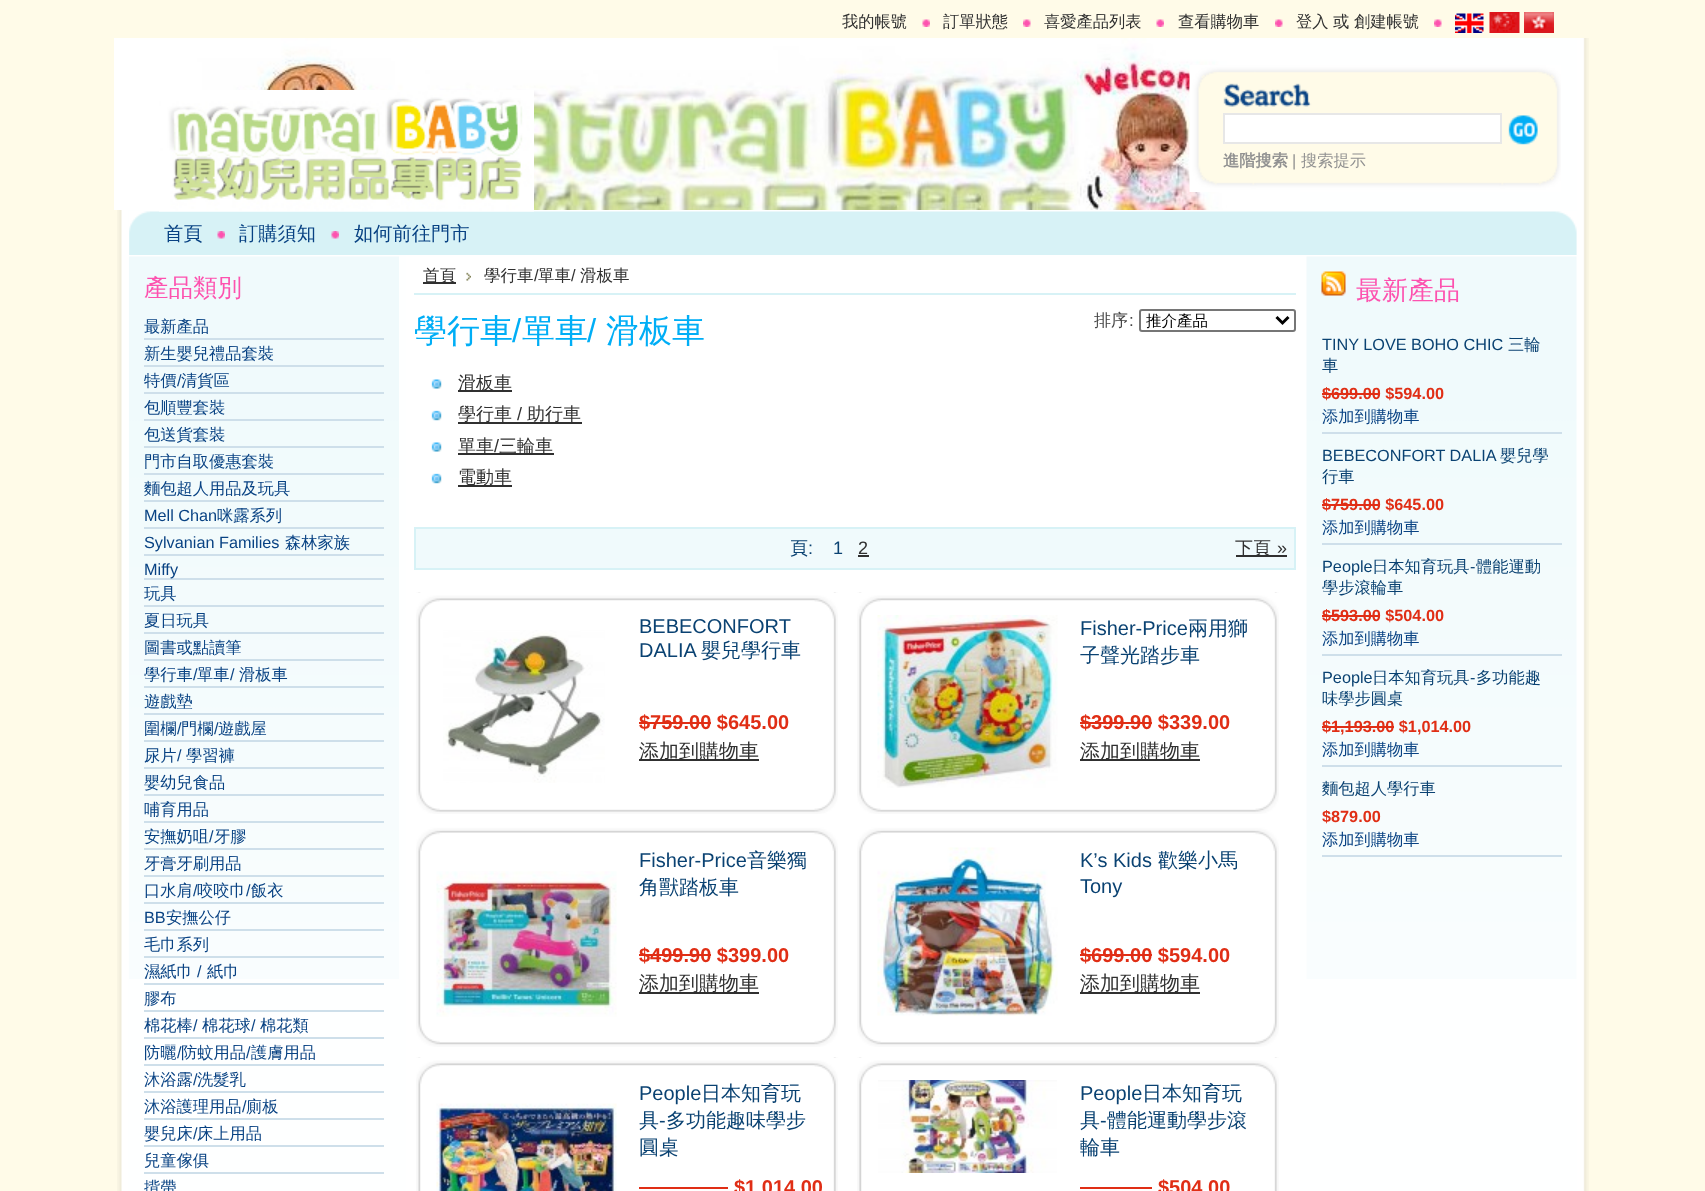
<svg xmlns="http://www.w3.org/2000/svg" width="1705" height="1191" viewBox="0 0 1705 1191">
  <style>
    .t1 { font: 500 16.25px WenQuanYi Zen Hei; fill: #303030; }
    .t2 { font: bold 16.25px WenQuanYi Zen Hei; fill: #919191; }
    .t3 { font: 16.25px Liberation Sans; fill: #919191; }
    .t4 { font: 500 16.25px WenQuanYi Zen Hei; fill: #919191; }
    .t5 { font: 500 19.25px WenQuanYi Zen Hei; fill: #084283; }
    .t6 { font: 500 24.5px WenQuanYi Zen Hei; fill: #fd52af; }
    .t7 { font: 500 16.25px WenQuanYi Zen Hei; fill: #084283; }
    .t8 { font: 16.25px Liberation Sans; fill: #084283; }
    .t9 { font: 500 16.5px WenQuanYi Zen Hei; fill: #303030; }
    .t10 { font: 16.5px Liberation Sans; fill: #303030; }
    .t11 { font: 500 33px WenQuanYi Zen Hei; fill: #00aef6; }
    .t12 { font: 33px Liberation Sans; fill: #00aef6; }
    .t13 { font: 500 17px WenQuanYi Zen Hei; fill: #444; }
    .t14 { font: 17px Liberation Sans; fill: #444; }
    .t15 { font: 500 15.5px WenQuanYi Zen Hei; fill: #000; }
    .t16 { font: 500 18px WenQuanYi Zen Hei; fill: #303030; }
    .t17 { font: 18px Liberation Sans; fill: #303030; }
    .t18 { font: 500 18px WenQuanYi Zen Hei; fill: #0a4272; }
    .t19 { font: 18px Liberation Sans; fill: #0a4272; }
    .t20 { font: 20px Liberation Sans; fill: #0a4272; }
    .t21 { font: 500 20px WenQuanYi Zen Hei; fill: #0a4272; }
    .t22 { font: bold 20px Liberation Sans; fill: #e02e15; }
    .t23 { font: 500 20px WenQuanYi Zen Hei; fill: #303030; }
    .t24 { font: 500 26px WenQuanYi Zen Hei; fill: #fd52af; }
    .t25 { font: 16.25px Liberation Sans; fill: #0a4272; }
    .t26 { font: 500 16.25px WenQuanYi Zen Hei; fill: #0a4272; }
    .t27 { font: bold 16.25px Liberation Sans; fill: #e02e15; }
  </style>
  <rect width="100%" height="100%" fill="#fffbe8"/>
  <image x="117" y="38" width="1472" height="1153" href="images/1.png"/>
  <text x="842" y="27" class="t1">我的帳號</text>
  <image x="922" y="19" width="8" height="8" href="images/2.png"/>
  <text x="943" y="27" class="t1">訂單狀態</text>
  <image x="1023" y="19" width="8" height="8" href="images/3.png"/>
  <text x="1044" y="27" class="t1">喜愛產品列表</text>
  <image x="1156" y="19" width="8" height="8" href="images/4.png"/>
  <text x="1178" y="27" class="t1">查看購物車</text>
  <image x="1275" y="19" width="8" height="8" href="images/5.png"/>
  <text x="1296" y="27" class="t1">登入</text>
  <text x="1333" y="27" class="t1">或</text>
  <text x="1354" y="27" class="t1">創建帳號</text>
  <image x="1434" y="19" width="8" height="8" href="images/6.png"/>
  <image x="1455" y="13" width="29" height="20" href="images/7.png"/>
  <image x="1489" y="12" width="31" height="21" href="images/8.png"/>
  <image x="1524" y="12" width="30" height="21" href="images/9.png"/>
  <image x="114" y="38" width="1113" height="172" href="images/10.png"/>
  <image x="129" y="211" width="1448" height="44" href="images/14.png"/>
  <image x="159" y="90" width="375" height="122" href="images/11.png"/>
  <image x="1189" y="65" width="372" height="127" href="images/12.png"/>
  <rect x="1224" y="114" width="277" height="29" fill="#fff" stroke="#e7e7e7" stroke-width="2"/>
  <image x="1508" y="115" width="30" height="30" href="images/13.png"/>
  <text x="1223" y="166" class="t2">進階搜索</text>
  <text x="1292" y="166" class="t3">|</text>
  <text x="1301" y="166" class="t4">搜索提示</text>
  <text x="164" y="240" class="t5">首頁</text>
  <image x="217" y="231" width="8" height="8" href="images/15.png"/>
  <text x="239" y="240" class="t5">訂購須知</text>
  <image x="331" y="231" width="8" height="8" href="images/15.png"/>
  <text x="354" y="240" class="t5">如何前往門市</text>
  <image x="129" y="256" width="270" height="723" href="images/16.png"/>
  <text x="144" y="296" class="t6">產品類別</text>
  <rect x="144" y="338" width="240" height="2" fill="#cedfea"/>
  <text x="144" y="332" class="t7">最新產品</text>
  <rect x="144" y="365" width="240" height="2" fill="#cedfea"/>
  <text x="144" y="359" class="t7">新生嬰兒禮品套裝</text>
  <rect x="144" y="392" width="240" height="2" fill="#cedfea"/>
  <text x="144" y="386" class="t7">特價</text>
  <text x="177" y="386" class="t8">/</text>
  <text x="181" y="386" class="t7">清貨區</text>
  <rect x="144" y="419" width="240" height="2" fill="#cedfea"/>
  <text x="144" y="413" class="t7">包順豐套裝</text>
  <rect x="144" y="446" width="240" height="2" fill="#cedfea"/>
  <text x="144" y="440" class="t7">包送貨套裝</text>
  <rect x="144" y="473" width="240" height="2" fill="#cedfea"/>
  <text x="144" y="467" class="t7">門市自取優惠套裝</text>
  <rect x="144" y="500" width="240" height="2" fill="#cedfea"/>
  <text x="144" y="494" class="t7">麵包超人用品及玩具</text>
  <rect x="144" y="527" width="240" height="2" fill="#cedfea"/>
  <text x="144" y="521" class="t8">Mell Chan</text>
  <text x="217" y="521" class="t7">咪露系列</text>
  <rect x="144" y="554" width="240" height="2" fill="#cedfea"/>
  <text x="144" y="548" class="t8">Sylvanian Families</text>
  <text x="285" y="548" class="t7">森林家族</text>
  <rect x="144" y="578" width="240" height="2" fill="#cedfea"/>
  <text x="144" y="575" class="t8">Miffy</text>
  <rect x="144" y="605" width="240" height="2" fill="#cedfea"/>
  <text x="144" y="599" class="t7">玩具</text>
  <rect x="144" y="632" width="240" height="2" fill="#cedfea"/>
  <text x="144" y="626" class="t7">夏日玩具</text>
  <rect x="144" y="659" width="240" height="2" fill="#cedfea"/>
  <text x="144" y="653" class="t7">圖書或點讀筆</text>
  <rect x="144" y="686" width="240" height="2" fill="#cedfea"/>
  <text x="144" y="680" class="t7">學行車</text>
  <text x="193" y="680" class="t8">/</text>
  <text x="197" y="680" class="t7">單車</text>
  <text x="230" y="680" class="t8">/</text>
  <text x="239" y="680" class="t7">滑板車</text>
  <rect x="144" y="713" width="240" height="2" fill="#cedfea"/>
  <text x="144" y="707" class="t7">遊戲墊</text>
  <rect x="144" y="740" width="240" height="2" fill="#cedfea"/>
  <text x="144" y="734" class="t7">圍欄</text>
  <text x="177" y="734" class="t8">/</text>
  <text x="181" y="734" class="t7">門欄</text>
  <text x="214" y="734" class="t8">/</text>
  <text x="218" y="734" class="t7">遊戲屋</text>
  <rect x="144" y="767" width="240" height="2" fill="#cedfea"/>
  <text x="144" y="761" class="t7">尿片</text>
  <text x="177" y="761" class="t8">/</text>
  <text x="186" y="761" class="t7">學習褲</text>
  <rect x="144" y="794" width="240" height="2" fill="#cedfea"/>
  <text x="144" y="788" class="t7">嬰幼兒食品</text>
  <rect x="144" y="821" width="240" height="2" fill="#cedfea"/>
  <text x="144" y="815" class="t7">哺育用品</text>
  <rect x="144" y="848" width="240" height="2" fill="#cedfea"/>
  <text x="144" y="842" class="t7">安撫奶咀</text>
  <text x="209" y="842" class="t8">/</text>
  <text x="214" y="842" class="t7">牙膠</text>
  <rect x="144" y="875" width="240" height="2" fill="#cedfea"/>
  <text x="144" y="869" class="t7">牙膏牙刷用品</text>
  <rect x="144" y="902" width="240" height="2" fill="#cedfea"/>
  <text x="144" y="896" class="t7">口水肩</text>
  <text x="193" y="896" class="t8">/</text>
  <text x="197" y="896" class="t7">咬咬巾</text>
  <text x="246" y="896" class="t8">/</text>
  <text x="251" y="896" class="t7">飯衣</text>
  <rect x="144" y="929" width="240" height="2" fill="#cedfea"/>
  <text x="144" y="923" class="t8">BB</text>
  <text x="166" y="923" class="t7">安撫公仔</text>
  <rect x="144" y="956" width="240" height="2" fill="#cedfea"/>
  <text x="144" y="950" class="t7">毛巾系列</text>
  <rect x="144" y="983" width="240" height="2" fill="#cedfea"/>
  <text x="144" y="977" class="t7">濕紙巾</text>
  <text x="197" y="977" class="t8">/</text>
  <text x="207" y="977" class="t7">紙巾</text>
  <rect x="144" y="1010" width="240" height="2" fill="#cedfea"/>
  <text x="144" y="1004" class="t7">膠布</text>
  <rect x="144" y="1037" width="240" height="2" fill="#cedfea"/>
  <text x="144" y="1031" class="t7">棉花棒</text>
  <text x="193" y="1031" class="t8">/</text>
  <text x="202" y="1031" class="t7">棉花球</text>
  <text x="251" y="1031" class="t8">/</text>
  <text x="260" y="1031" class="t7">棉花類</text>
  <rect x="144" y="1064" width="240" height="2" fill="#cedfea"/>
  <text x="144" y="1058" class="t7">防曬</text>
  <text x="177" y="1058" class="t8">/</text>
  <text x="181" y="1058" class="t7">防蚊用品</text>
  <text x="246" y="1058" class="t8">/</text>
  <text x="251" y="1058" class="t7">護膚用品</text>
  <rect x="144" y="1091" width="240" height="2" fill="#cedfea"/>
  <text x="144" y="1085" class="t7">沐浴露</text>
  <text x="193" y="1085" class="t8">/</text>
  <text x="197" y="1085" class="t7">洗髮乳</text>
  <rect x="144" y="1118" width="240" height="2" fill="#cedfea"/>
  <text x="144" y="1112" class="t7">沐浴護理用品</text>
  <text x="242" y="1112" class="t8">/</text>
  <text x="246" y="1112" class="t7">廁板</text>
  <rect x="144" y="1145" width="240" height="2" fill="#cedfea"/>
  <text x="144" y="1139" class="t7">嬰兒床</text>
  <text x="193" y="1139" class="t8">/</text>
  <text x="197" y="1139" class="t7">床上用品</text>
  <rect x="144" y="1172" width="240" height="2" fill="#cedfea"/>
  <text x="144" y="1166" class="t7">兒童傢俱</text>
  <text x="144" y="1193" class="t7">揹帶</text>
  <rect x="414" y="293" width="882" height="2" fill="#d7f2f6"/>
  <rect x="423" y="282" width="33" height="2" fill="#303030"/>
  <text x="423" y="281" class="t9">首頁</text>
  <image x="466" y="272" width="5" height="9" href="images/17.png"/>
  <text x="484" y="281" class="t9">學行車</text>
  <text x="534" y="281" class="t10">/</text>
  <text x="538" y="281" class="t9">單車</text>
  <text x="571" y="281" class="t10">/</text>
  <text x="580" y="281" class="t9">滑板車</text>
  <text x="414" y="342" class="t11">學行車</text>
  <text x="512" y="342" class="t12">/</text>
  <text x="522" y="342" class="t11">單車</text>
  <text x="587" y="342" class="t12">/</text>
  <text x="606" y="342" class="t11">滑板車</text>
  <text x="1094" y="326" class="t13">排序</text>
  <text x="1129" y="326" class="t14">:</text>
  <rect x="1140" y="310" width="155" height="21" rx="2" fill="none" stroke="#767676" stroke-width="2"/>
  <path d="M1276.5 317L1282.5 323L1288.5 317" fill="none" stroke="#000" stroke-width="3"/>
  <text x="1146" y="326" class="t15">推介產品</text>
  <image x="431" y="379" width="11" height="10" href="images/18.png"/>
  <rect x="458" y="390" width="54" height="2" fill="#303030"/>
  <text x="458" y="389" class="t16">滑板車</text>
  <image x="431" y="410" width="11" height="11" href="images/19.png"/>
  <rect x="458" y="422" width="124" height="2" fill="#303030"/>
  <text x="458" y="420" class="t16">學行車</text>
  <text x="517" y="420" class="t17">/</text>
  <text x="527" y="420" class="t16">助行車</text>
  <image x="431" y="442" width="11" height="10" href="images/18.png"/>
  <rect x="458" y="453" width="96" height="2" fill="#303030"/>
  <text x="458" y="452" class="t16">單車</text>
  <text x="494" y="452" class="t17">/</text>
  <text x="499" y="452" class="t16">三輪車</text>
  <image x="431" y="473" width="11" height="11" href="images/19.png"/>
  <rect x="458" y="485" width="54" height="2" fill="#303030"/>
  <text x="458" y="483" class="t16">電動車</text>
  <rect x="415" y="528" width="880" height="41" fill="#f0fafc" stroke="#d7f2f6" stroke-width="2"/>
  <text x="790" y="554" class="t18">頁</text>
  <text x="808" y="554" class="t19">:</text>
  <text x="833" y="554" class="t19">1</text>
  <text x="858" y="554" class="t17">2</text>
  <rect x="858" y="555" width="11" height="2" fill="#303030"/>
  <rect x="1236" y="555" width="51" height="2" fill="#303030"/>
  <text x="1235" y="554" class="t16">下頁</text>
  <text x="1277" y="554" class="t17">»</text>
  <image x="416" y="592" width="422" height="222" href="images/20.png"/>
  <image x="416" y="592" width="422" height="27" href="images/22.png"/>
  <rect x="419" y="592" width="1" height="1" fill="#f3f3f3"/>
  <image x="443" y="630" width="162" height="153" href="images/21.png"/>
  <text x="639" y="633" class="t20">BEBECONFORT</text>
  <text x="639" y="657" class="t20">DALIA</text>
  <text x="701" y="657" class="t21">嬰兒學行車</text>
  <text x="639" y="729" class="t22">$759.00 $645.00</text>
  <rect x="639" y="722" width="72" height="2" fill="#e02e15"/>
  <rect x="639" y="759" width="120" height="2" fill="#303030"/>
  <text x="639" y="758" class="t23">添加到購物車</text>
  <image x="857" y="592" width="422" height="222" href="images/23.png"/>
  <image x="857" y="592" width="422" height="27" href="images/25.png"/>
  <rect x="860" y="592" width="1" height="1" fill="#f3f3f3"/>
  <image x="877" y="615" width="181" height="173" href="images/24.png"/>
  <text x="1080" y="635" class="t20">Fisher-Price</text>
  <text x="1188" y="635" class="t21">兩用獅</text>
  <text x="1080" y="662" class="t21">子聲光踏步車</text>
  <text x="1080" y="729" class="t22">$399.90 $339.00</text>
  <rect x="1080" y="722" width="72" height="2" fill="#e02e15"/>
  <rect x="1080" y="759" width="120" height="2" fill="#303030"/>
  <text x="1080" y="758" class="t23">添加到購物車</text>
  <image x="416" y="851" width="422" height="196" href="images/26.png"/>
  <image x="436" y="871" width="181" height="146" href="images/27.png"/>
  <image x="416" y="825" width="422" height="26" href="images/28.png"/>
  <text x="639" y="867" class="t20">Fisher-Price</text>
  <text x="747" y="867" class="t21">音樂獨</text>
  <text x="639" y="894" class="t21">角獸踏板車</text>
  <text x="639" y="962" class="t22">$499.90 $399.00</text>
  <rect x="639" y="954" width="72" height="2" fill="#e02e15"/>
  <rect x="639" y="992" width="120" height="2" fill="#303030"/>
  <text x="639" y="990" class="t23">添加到購物車</text>
  <image x="857" y="851" width="422" height="196" href="images/29.png"/>
  <image x="857" y="825" width="422" height="26" href="images/31.png"/>
  <image x="877" y="847" width="181" height="169" href="images/30.png"/>
  <text x="1080" y="867" class="t20">K’s Kids</text>
  <text x="1158" y="867" class="t21">歡樂小馬</text>
  <text x="1080" y="893" class="t20">Tony</text>
  <text x="1080" y="962" class="t22">$699.00 $594.00</text>
  <rect x="1080" y="954" width="72" height="2" fill="#e02e15"/>
  <rect x="1080" y="992" width="120" height="2" fill="#303030"/>
  <text x="1080" y="990" class="t23">添加到購物車</text>
  <image x="416" y="1057" width="422" height="134" href="images/32.png"/>
  <image x="416" y="1057" width="422" height="27" href="images/22.png"/>
  <rect x="419" y="1057" width="1" height="1" fill="#f3f3f3"/>
  <image x="436" y="1103" width="181" height="88" href="images/33.png"/>
  <text x="639" y="1100" class="t20">People</text>
  <text x="701" y="1100" class="t21">日本知育玩</text>
  <text x="639" y="1127" class="t21">具</text>
  <text x="659" y="1127" class="t20">-</text>
  <text x="666" y="1127" class="t21">多功能趣味學步</text>
  <text x="639" y="1154" class="t21">圓桌</text>
  <rect x="639" y="1187" width="89" height="2" fill="#e02e15"/>
  <text x="734" y="1194" class="t22">$1,014.00</text>
  <image x="857" y="1057" width="422" height="134" href="images/34.png"/>
  <image x="857" y="1057" width="422" height="27" href="images/25.png"/>
  <rect x="860" y="1057" width="1" height="1" fill="#f3f3f3"/>
  <image x="878" y="1080" width="179" height="93" href="images/35.png"/>
  <text x="1080" y="1100" class="t20">People</text>
  <text x="1142" y="1100" class="t21">日本知育玩</text>
  <text x="1080" y="1127" class="t21">具</text>
  <text x="1100" y="1127" class="t20">-</text>
  <text x="1107" y="1127" class="t21">體能運動學步滾</text>
  <text x="1080" y="1154" class="t21">輪車</text>
  <rect x="1080" y="1187" width="72" height="2" fill="#e02e15"/>
  <text x="1158" y="1194" class="t22">$504.00</text>
  <image x="1306" y="256" width="271" height="723" href="images/36.png"/>
  <image x="1321" y="271" width="25" height="25" href="images/37.png"/>
  <text x="1356" y="299" class="t24">最新產品</text>
  <rect x="1322" y="432" width="240" height="2" fill="#cedfea"/>
  <text x="1322" y="350" class="t25">TINY LOVE BOHO CHIC</text>
  <text x="1508" y="350" class="t26">三輪</text>
  <text x="1322" y="371" class="t26">車</text>
  <text x="1322" y="399" class="t27">$699.00 $594.00</text>
  <rect x="1322" y="393" width="58" height="2" fill="#e02e15"/>
  <text x="1322" y="422" class="t7">添加到購物車</text>
  <rect x="1322" y="543" width="240" height="2" fill="#cedfea"/>
  <text x="1322" y="461" class="t25">BEBECONFORT DALIA</text>
  <text x="1500" y="461" class="t26">嬰兒學</text>
  <text x="1322" y="482" class="t26">行車</text>
  <text x="1322" y="510" class="t27">$759.00 $645.00</text>
  <rect x="1322" y="504" width="58" height="2" fill="#e02e15"/>
  <text x="1322" y="533" class="t7">添加到購物車</text>
  <rect x="1322" y="654" width="240" height="2" fill="#cedfea"/>
  <text x="1322" y="572" class="t25">People</text>
  <text x="1372" y="572" class="t26">日本知育玩具</text>
  <text x="1470" y="572" class="t25">-</text>
  <text x="1476" y="572" class="t26">體能運動</text>
  <text x="1322" y="593" class="t26">學步滾輪車</text>
  <text x="1322" y="621" class="t27">$593.00 $504.00</text>
  <rect x="1322" y="615" width="58" height="2" fill="#e02e15"/>
  <text x="1322" y="644" class="t7">添加到購物車</text>
  <rect x="1322" y="765" width="240" height="2" fill="#cedfea"/>
  <text x="1322" y="683" class="t25">People</text>
  <text x="1372" y="683" class="t26">日本知育玩具</text>
  <text x="1470" y="683" class="t25">-</text>
  <text x="1476" y="683" class="t26">多功能趣</text>
  <text x="1322" y="704" class="t26">味學步圓桌</text>
  <text x="1322" y="732" class="t27">$1,193.00 $1,014.00</text>
  <rect x="1322" y="726" width="72" height="2" fill="#e02e15"/>
  <text x="1322" y="755" class="t7">添加到購物車</text>
  <rect x="1322" y="855" width="240" height="2" fill="#cedfea"/>
  <text x="1322" y="794" class="t26">麵包超人學行車</text>
  <text x="1322" y="822" class="t27">$879.00</text>
  <text x="1322" y="845" class="t7">添加到購物車</text>
</svg>
